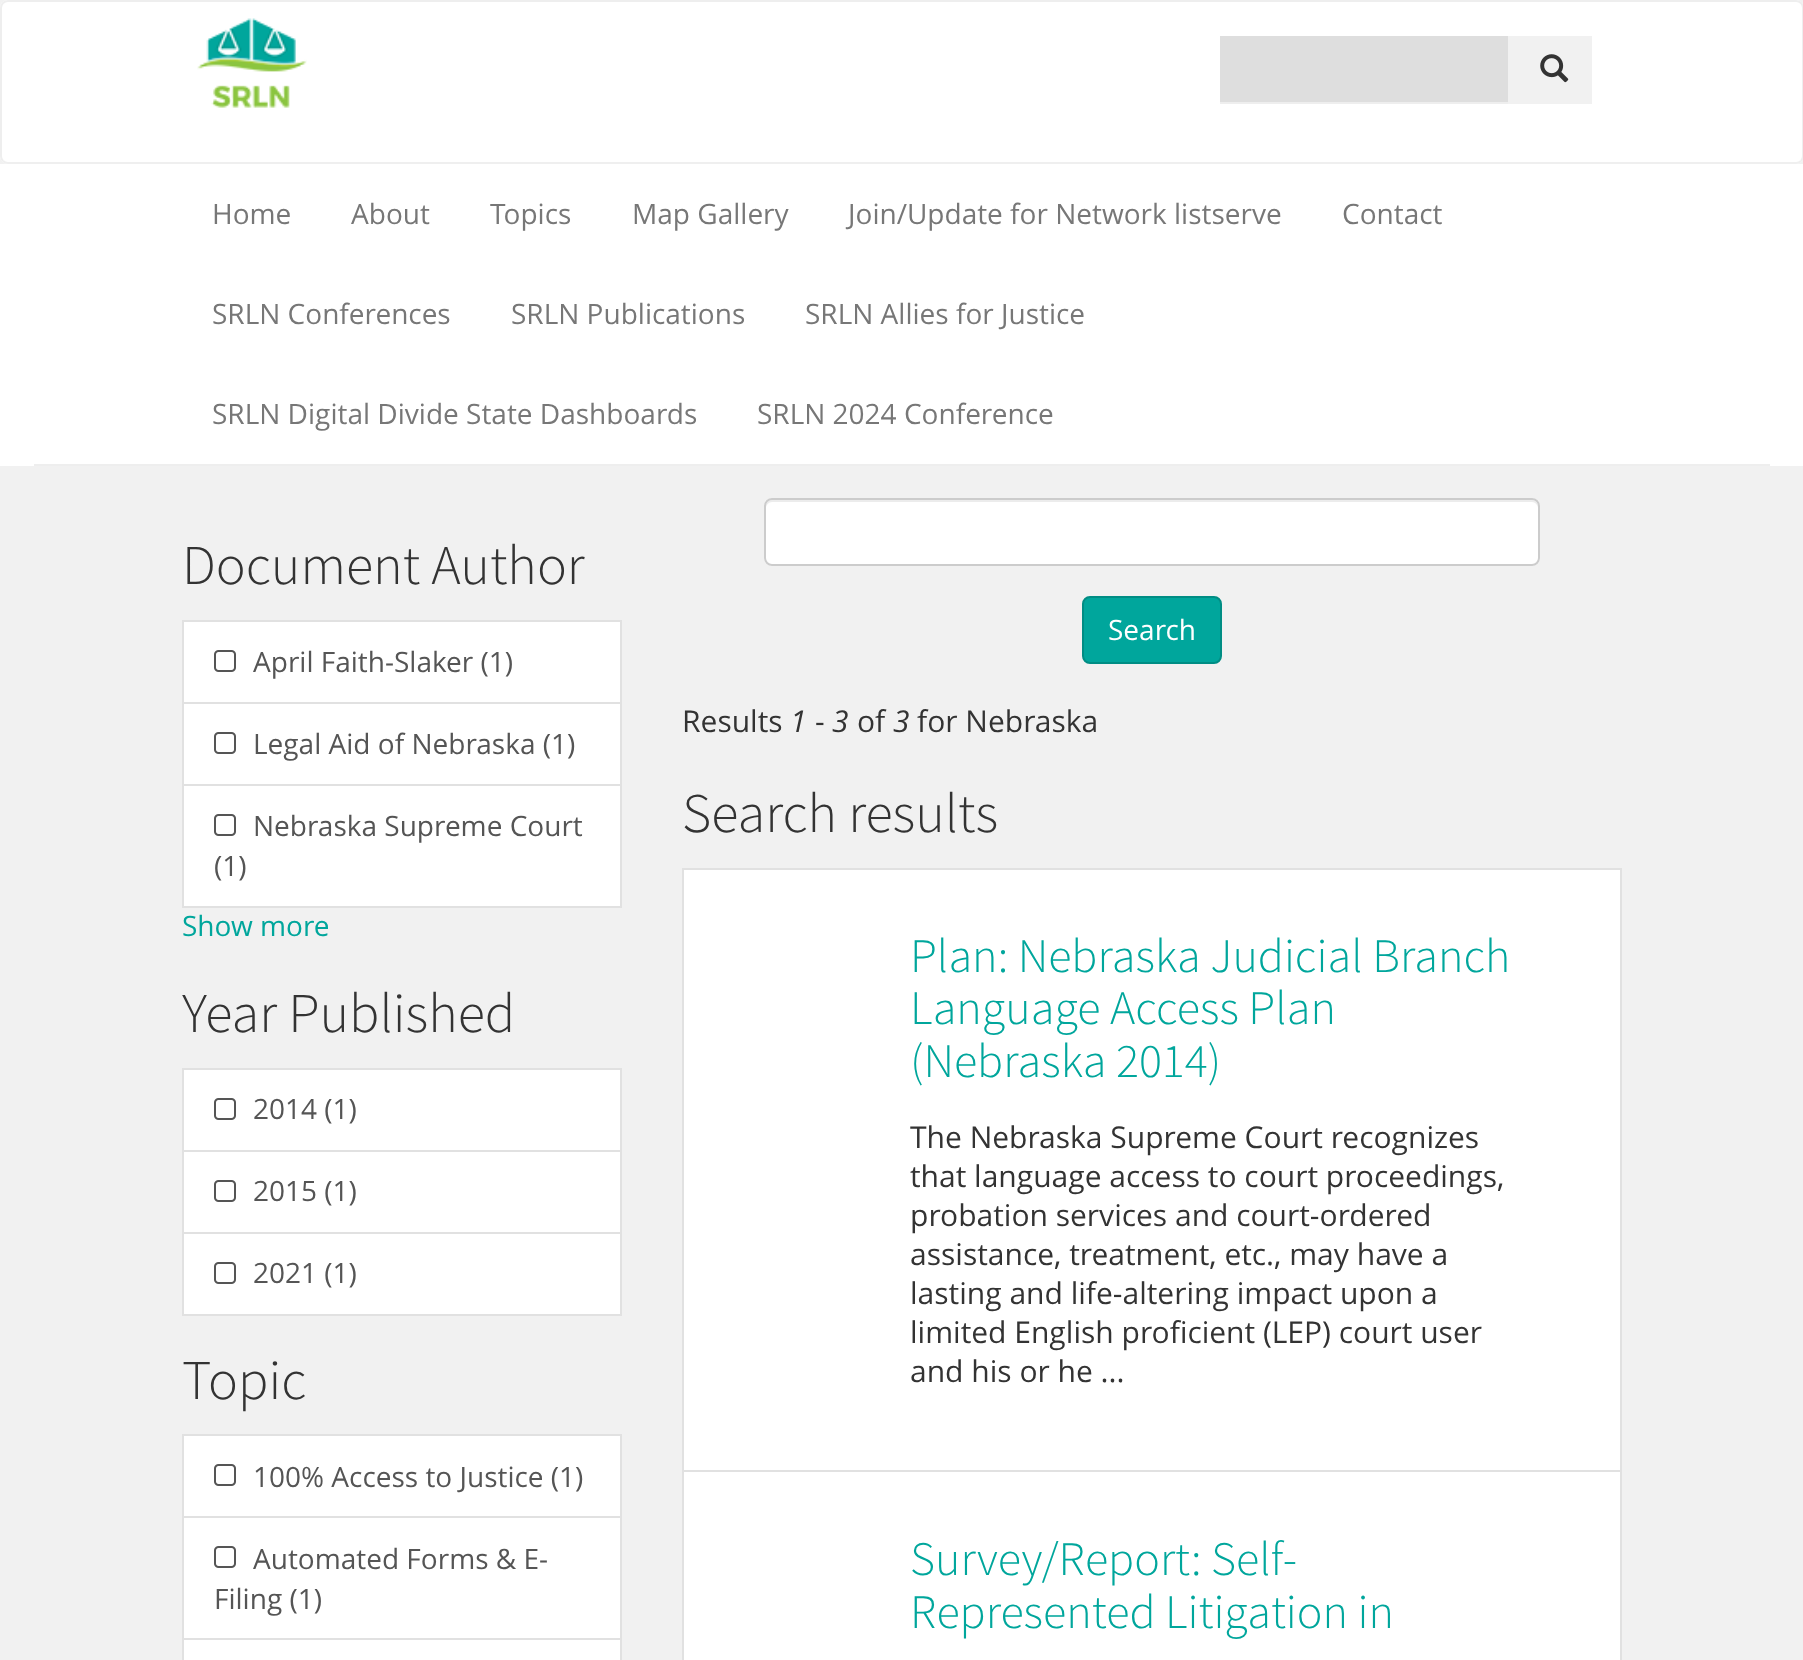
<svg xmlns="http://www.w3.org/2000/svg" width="1803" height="1660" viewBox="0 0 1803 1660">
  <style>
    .t1 { font: 28px Open Sans; fill: #777; }
    .t2 { font: 300 56px Source Sans Pro; fill: #333; }
    .t3 { font: 28px Open Sans; fill: #555; }
    .t4 { font: 28px Open Sans; fill: #00a69c; }
    .t5 { font: 28px Open Sans; fill: #fff; }
    .t6 { font: 30px Open Sans; fill: #333; }
    .t7 { font: italic 30px Open Sans; fill: #333; }
    .t8 { font: 300 48px Source Sans Pro; fill: #00a69c; }
  </style>
  <rect width="100%" height="100%" fill="#f1f1f1"/>
  <rect x="0" y="0" width="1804" height="164" rx="8" fill="#fff"/>
  <path d="M1801 161C1799.5 162.5 1798 163 1796 163H8C6 163 4.5 162.5 3 161" fill="none" stroke="#efefef" stroke-width="2"/>
  <path d="M3 161C1.5 159.5 1 158 1 156V8C1 6 1.5 4.5 3 3C4.5 1.5 6 1 8 1H1796C1798 1 1799.5 1.5 1801 3C1802.5 4.5 1803 6 1803 8V156C1803 158 1802.5 159.5 1801 161" fill="none" stroke="#eee" stroke-width="2"/>
  <image x="197" y="18" width="110" height="90" href="images/1.png"/>
  <rect x="1508" y="36" width="84" height="68" fill="#f1f1f1"/>
  <rect x="1220" y="36" width="288" height="66" fill="#dedede"/>
  <rect x="1220" y="102" width="288" height="2" fill="#eee"/>
  <image x="1540" y="54" width="29" height="29" href="images/2.png"/>
  <rect x="0" y="164" width="1803" height="302" fill="#fff"/>
  <rect x="34" y="464" width="1736" height="2" fill="#eee"/>
  <text x="212" y="224" class="t1">Home</text>
  <text x="351" y="224" class="t1">About</text>
  <text x="490" y="224" class="t1">Topics</text>
  <text x="632" y="224" class="t1">Map Gallery</text>
  <text x="848" y="224" class="t1">Join/Update for Network listserve</text>
  <text x="1342" y="224" class="t1">Contact</text>
  <text x="212" y="324" class="t1">SRLN Conferences</text>
  <text x="511" y="324" class="t1">SRLN Publications</text>
  <text x="805" y="324" class="t1">SRLN Allies for Justice</text>
  <text x="212" y="424" class="t1">SRLN Digital Divide State Dashboards</text>
  <text x="757" y="424" class="t1">SRLN 2024 Conference</text>
  <text x="182" y="584" class="t2">Document Author</text>
  <rect x="183" y="621" width="438" height="82" fill="#fff" stroke="#e1e1e1" stroke-width="2"/>
  <image x="214" y="650" width="22" height="22" href="images/3.png"/>
  <text x="253" y="672" class="t3">April Faith-Slaker (1)</text>
  <rect x="183" y="703" width="438" height="82" fill="#fff" stroke="#e1e1e1" stroke-width="2"/>
  <image x="214" y="732" width="22" height="22" href="images/3.png"/>
  <text x="253" y="754" class="t3">Legal Aid of Nebraska (1)</text>
  <rect x="183" y="785" width="438" height="122" fill="#fff" stroke="#e1e1e1" stroke-width="2"/>
  <image x="214" y="814" width="22" height="22" href="images/3.png"/>
  <text x="253" y="836" class="t3">Nebraska Supreme Court</text>
  <text x="214" y="876" class="t3">(1)</text>
  <text x="182" y="936" class="t4">Show more</text>
  <text x="182" y="1032" class="t2">Year Published</text>
  <rect x="183" y="1069" width="438" height="82" fill="#fff" stroke="#e1e1e1" stroke-width="2"/>
  <image x="214" y="1098" width="22" height="22" href="images/3.png"/>
  <text x="253" y="1119" class="t3">2014 (1)</text>
  <rect x="183" y="1151" width="438" height="82" fill="#fff" stroke="#e1e1e1" stroke-width="2"/>
  <image x="214" y="1180" width="22" height="22" href="images/3.png"/>
  <text x="253" y="1201" class="t3">2015 (1)</text>
  <rect x="183" y="1233" width="438" height="82" fill="#fff" stroke="#e1e1e1" stroke-width="2"/>
  <image x="214" y="1262" width="22" height="22" href="images/3.png"/>
  <text x="253" y="1283" class="t3">2021 (1)</text>
  <text x="182" y="1399" class="t2">Topic</text>
  <rect x="183" y="1435" width="438" height="82" fill="#fff" stroke="#e1e1e1" stroke-width="2"/>
  <image x="214" y="1464" width="22" height="22" href="images/3.png"/>
  <text x="253" y="1487" class="t3">100% Access to Justice (1)</text>
  <rect x="183" y="1517" width="438" height="122" fill="#fff" stroke="#e1e1e1" stroke-width="2"/>
  <image x="214" y="1546" width="22" height="22" href="images/3.png"/>
  <text x="253" y="1569" class="t3">Automated Forms &amp; E-</text>
  <text x="214" y="1609" class="t3">Filing (1)</text>
  <rect x="183" y="1639" width="438" height="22" fill="#fff" stroke="#e1e1e1" stroke-width="2"/>
  <rect x="764" y="498" width="776" height="68" rx="8" fill="#fff"/>
  <path d="M772 502H1532C1535 502 1538 505 1538 508V506C1538 503 1535 500 1532 500H772C769 500 766 503 766 506V508C766 505 769 502 772 502Z" fill="#ececec"/>
  <rect x="765" y="499" width="774" height="66" rx="7" fill="none" stroke="#ccc" stroke-width="2"/>
  <rect x="1083" y="597" width="138" height="66" rx="7" fill="#00a69c" stroke="#008d84" stroke-width="2"/>
  <text x="1108" y="640" class="t5">Search</text>
  <text x="682" y="732" class="t6">Results</text>
  <text x="790" y="732" class="t7">1</text>
  <text x="815" y="732" class="t6">-</text>
  <text x="832" y="732" class="t7">3</text>
  <text x="857" y="732" class="t6">of</text>
  <text x="893" y="732" class="t7">3</text>
  <text x="917" y="732" class="t6">for Nebraska</text>
  <text x="682" y="832" class="t2">Search results</text>
  <rect x="683" y="869" width="938" height="602" fill="#fff" stroke="#e1e1e1" stroke-width="2"/>
  <text x="910" y="972" class="t8">Plan: Nebraska Judicial Branch</text>
  <text x="910" y="1024" class="t8">Language Access Plan</text>
  <text x="910" y="1077" class="t8">(Nebraska 2014)</text>
  <text x="910" y="1148" class="t6">The Nebraska Supreme Court recognizes</text>
  <text x="910" y="1187" class="t6">that language access to court proceedings,</text>
  <text x="910" y="1226" class="t6">probation services and court-ordered</text>
  <text x="910" y="1265" class="t6">assistance, treatment, etc., may have a</text>
  <text x="910" y="1304" class="t6">lasting and life-altering impact upon a</text>
  <text x="910" y="1343" class="t6">limited English proficient (LEP) court user</text>
  <text x="910" y="1382" class="t6">and his or he ...</text>
  <rect x="683" y="1471" width="938" height="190" fill="#fff" stroke="#e1e1e1" stroke-width="2"/>
  <text x="910" y="1575" class="t8">Survey/Report: Self-</text>
  <text x="910" y="1628" class="t8">Represented Litigation in</text>
</svg>
